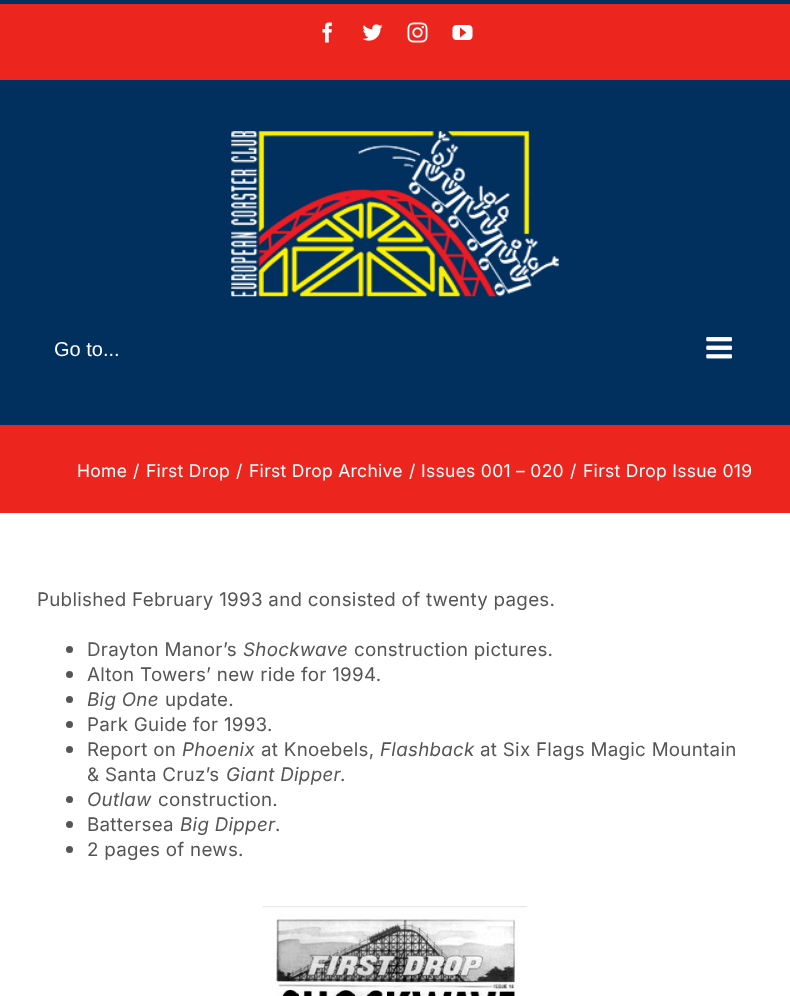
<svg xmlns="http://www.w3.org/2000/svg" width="790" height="996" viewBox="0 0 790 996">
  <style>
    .t1 { font: 20px Liberation Sans; fill: #fff; }
    .t2 { font: 17.5px Inter; letter-spacing: 0.28px; fill: #fff; }
    .t3 { font: 18.75px Inter; letter-spacing: 0.28px; fill: #555; }
    .t4 { font: italic 18.75px Inter; letter-spacing: 0.28px; fill: #555; }
  </style>
  <rect width="100%" height="100%" fill="#fff"/>
  <rect x="0" y="4" width="790" height="76" fill="#ec261e"/>
  <rect x="0" y="0" width="790" height="4" fill="#012f5e"/>
  <rect x="0" y="80" width="790" height="345" fill="#012f5e"/>
  <image x="322" y="22" width="10" height="21" href="images/1.png"/>
  <image x="362" y="24" width="21" height="17" href="images/2.png"/>
  <image x="407" y="22" width="21" height="21" href="images/3.png"/>
  <image x="452" y="25" width="21" height="15" href="images/4.png"/>
  <image x="231" y="131" width="328" height="166" href="images/5.png"/>
  <text x="54" y="356" class="t1">Go to...</text>
  <image x="706" y="337" width="26" height="22" href="images/6.png"/>
  <rect x="0" y="425" width="790" height="88" fill="#ec261e"/>
  <text x="77" y="477" class="t2">Home</text>
  <text x="133" y="477" class="t2">/</text>
  <text x="146" y="477" class="t2">First Drop</text>
  <text x="236" y="477" class="t2">/</text>
  <text x="249" y="477" class="t2">First Drop Archive</text>
  <text x="409" y="477" class="t2">/</text>
  <text x="421" y="477" class="t2">Issues 001 – 020</text>
  <text x="570" y="477" class="t2">/</text>
  <text x="583" y="477" class="t2">First Drop Issue 019</text>
  <text x="37" y="606" class="t3">Published February 1993 and consisted of twenty pages.</text>
  <circle cx="69.5" cy="649.5" r="3.5" fill="#555"/>
  <text x="87" y="656" class="t3">Drayton Manor’s</text>
  <text x="243" y="656" class="t4">Shockwave</text>
  <text x="354" y="656" class="t3">construction pictures.</text>
  <circle cx="69.5" cy="674.5" r="3.5" fill="#555"/>
  <text x="87" y="681" class="t3">Alton Towers’ new ride for 1994.</text>
  <circle cx="69.5" cy="699.5" r="3.5" fill="#555"/>
  <text x="87" y="706" class="t4">Big One</text>
  <text x="165" y="706" class="t3">update.</text>
  <circle cx="69.5" cy="724.5" r="3.5" fill="#555"/>
  <text x="87" y="731" class="t3">Park Guide for 1993.</text>
  <circle cx="69.5" cy="749.5" r="3.5" fill="#555"/>
  <text x="87" y="756" class="t3">Report on</text>
  <text x="182" y="756" class="t4">Phoenix</text>
  <text x="261" y="756" class="t3">at Knoebels,</text>
  <text x="380" y="756" class="t4">Flashback</text>
  <text x="480" y="756" class="t3">at Six Flags Magic Mountain</text>
  <text x="87" y="781" class="t3">&amp; Santa Cruz’s</text>
  <text x="226" y="781" class="t4">Giant Dipper</text>
  <text x="340" y="781" class="t3">.</text>
  <circle cx="69.5" cy="799.5" r="3.5" fill="#555"/>
  <text x="87" y="806" class="t4">Outlaw</text>
  <text x="158" y="806" class="t3">construction.</text>
  <circle cx="69.5" cy="824.5" r="3.5" fill="#555"/>
  <text x="87" y="831" class="t3">Battersea</text>
  <text x="180" y="831" class="t4">Big Dipper</text>
  <text x="275" y="831" class="t3">.</text>
  <circle cx="69.5" cy="849.5" r="3.5" fill="#555"/>
  <text x="87" y="856" class="t3">2 pages of news.</text>
  <image x="262" y="906" width="266" height="90" href="images/7.png"/>
</svg>
